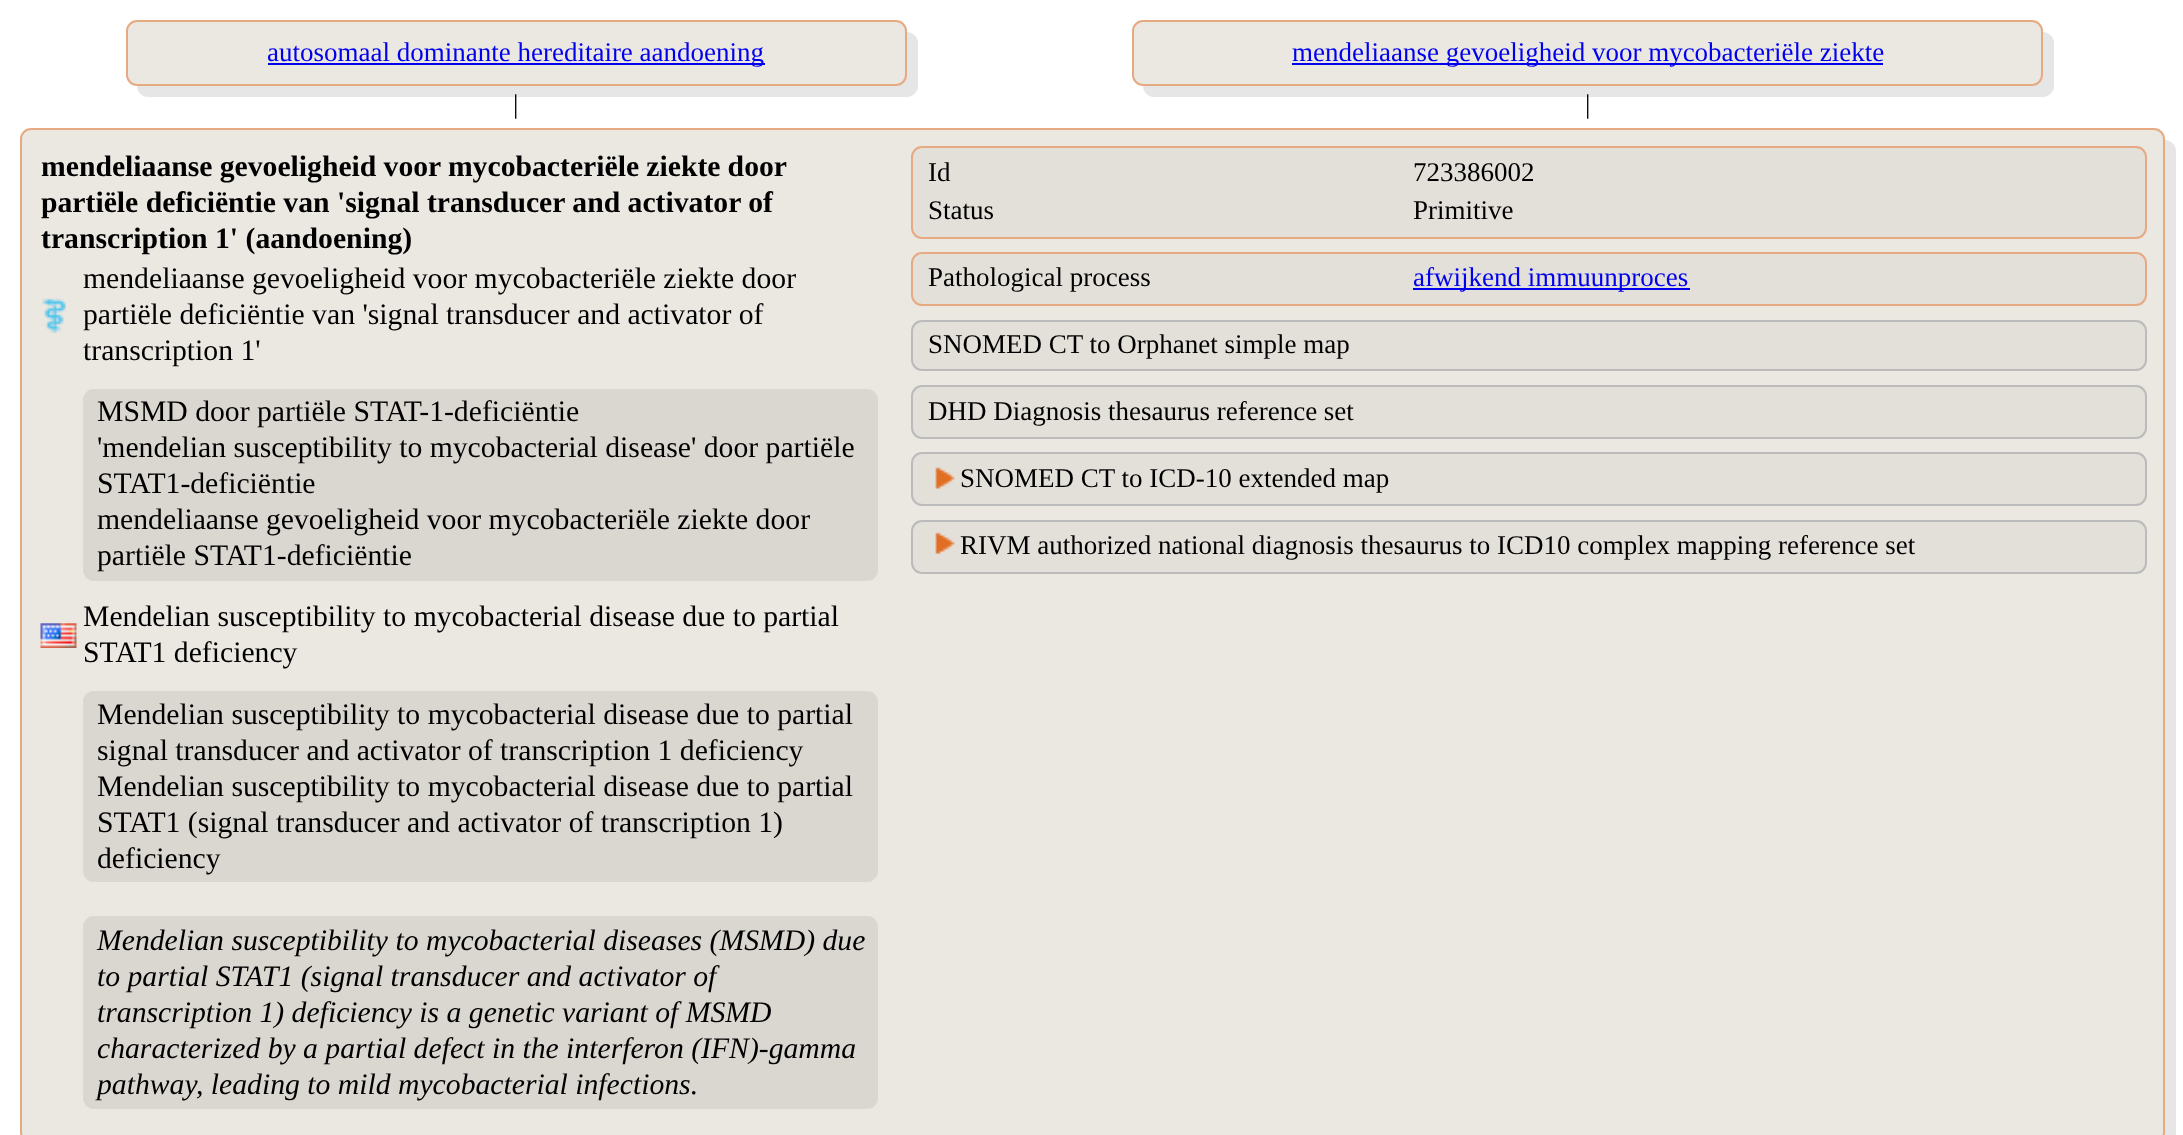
<svg xmlns="http://www.w3.org/2000/svg" width="2183" height="1135" viewBox="0 0 2183 1135">
  <style>
    .t1 { font: 27px Liberation Serif; fill: #00e; }
    .t2 { font: 27px Liberation Serif; fill: #000; }
    .t3 { font: bold 29.7px Liberation Serif; fill: #000; }
    .t4 { font: 29.7px Liberation Serif; fill: #000; }
    .t5 { font: italic 29.7px Liberation Serif; fill: #000; }
  </style>
  <rect width="100%" height="100%" fill="#fff"/>
  <path d="M137 85V86C137 92 142 97 148 97H907C913 97 918 92 918 86V43C918 37 913 32 907 32V60C907 69 909 85 896 86Z" fill="#e6e6e6"/>
  <rect x="127" y="21" width="779" height="64" rx="10" fill="#ebe7e1" stroke="#e6aa83" stroke-width="2"/>
  <rect x="268" y="63" width="497" height="2" fill="#00e"/>
  <text x="267" y="61" class="t1">autosomaal dominante hereditaire aandoening</text>
  <path d="M1143 86C1143 92 1148 97 1154 97H2043C2049 97 2054 92 2054 86V43C2054 37 2049 32 2043 32V74C2043 80 2038 86 2032 86Z" fill="#e6e6e6"/>
  <rect x="1133" y="21" width="909" height="64" rx="10" fill="#ebe7e1" stroke="#e6aa83" stroke-width="2"/>
  <rect x="1292" y="63" width="591" height="2" fill="#00e"/>
  <text x="1292" y="61" class="t1">mendeliaanse gevoeligheid voor mycobacteriële ziekte</text>
  <text x="513" y="113" class="t2">|</text>
  <text x="1585" y="113" class="t2">|</text>
  <path d="M32 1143C32 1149 37 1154 43 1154H2165C2171 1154 2176 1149 2176 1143V151C2176 145 2171 140 2165 140H2164V1132C2164 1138 2159 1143 2153 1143Z" fill="#e6e6e6"/>
  <rect x="21" y="129" width="2143" height="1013" rx="10" fill="#ebe7e1" stroke="#e6aa83" stroke-width="2"/>
  <text x="41" y="176" word-spacing="-0.25" class="t3">mendeliaanse gevoeligheid voor mycobacteriële ziekte door</text>
  <text x="41" y="212" class="t3">partiële deficiëntie van 'signal transducer and activator of</text>
  <text x="41" y="248" class="t3">transcription 1' (aandoening)</text>
  <image x="42" y="298" width="24" height="35" href="images/1.png"/>
  <text x="83" y="288" class="t4">mendeliaanse gevoeligheid voor mycobacteriële ziekte door</text>
  <text x="83" y="324" class="t4">partiële deficiëntie van 'signal transducer and activator of</text>
  <text x="83" y="360" class="t4">transcription 1'</text>
  <rect x="83" y="389" width="795" height="192" rx="11" fill="#dad6d0"/>
  <text x="97" y="421" class="t4">MSMD door partiële STAT-1-deficiëntie</text>
  <text x="97" y="457" class="t4">'mendelian susceptibility to mycobacterial disease' door partiële</text>
  <text x="97" y="493" class="t4">STAT1-deficiëntie</text>
  <text x="97" y="529" class="t4">mendeliaanse gevoeligheid voor mycobacteriële ziekte door</text>
  <text x="97" y="565" class="t4">partiële STAT1-deficiëntie</text>
  <image x="40" y="623" width="37" height="25" href="images/2.png"/>
  <text x="83" y="626" class="t4">Mendelian susceptibility to mycobacterial disease due to partial</text>
  <text x="83" y="662" class="t4">STAT1 deficiency</text>
  <rect x="83" y="691" width="795" height="191" rx="11" fill="#dad6d0"/>
  <text x="97" y="724" class="t4">Mendelian susceptibility to mycobacterial disease due to partial</text>
  <text x="97" y="760" class="t4">signal transducer and activator of transcription 1 deficiency</text>
  <text x="97" y="796" class="t4">Mendelian susceptibility to mycobacterial disease due to partial</text>
  <text x="97" y="832" class="t4">STAT1 (signal transducer and activator of transcription 1)</text>
  <text x="97" y="868" class="t4">deficiency</text>
  <rect x="83" y="916" width="795" height="193" rx="11" fill="#dad6d0"/>
  <text x="97" y="950" class="t5">Mendelian susceptibility to mycobacterial diseases (MSMD) due</text>
  <text x="97" y="986" class="t5">to partial STAT1 (signal transducer and activator of</text>
  <text x="97" y="1022" class="t5">transcription 1) deficiency is a genetic variant of MSMD</text>
  <text x="97" y="1058" class="t5">characterized by a partial defect in the interferon (IFN)-gamma</text>
  <text x="97" y="1094" class="t5">pathway, leading to mild mycobacterial infections.</text>
  <rect x="912" y="147" width="1234" height="91" rx="10" fill="#e3dfd9" stroke="#e6aa83" stroke-width="2"/>
  <text x="928" y="181" class="t2">Id</text>
  <text x="1413" y="181" class="t2">723386002</text>
  <text x="928" y="219" class="t2">Status</text>
  <text x="1413" y="219" class="t2">Primitive</text>
  <rect x="912" y="253" width="1234" height="52" rx="10" fill="#e3dfd9" stroke="#e6aa83" stroke-width="2"/>
  <text x="928" y="286" class="t2">Pathological process</text>
  <rect x="1413" y="288" width="277" height="2" fill="#00e"/>
  <text x="1413" y="286" class="t1">afwijkend immuunproces</text>
  <rect x="912" y="321" width="1234" height="49" rx="10" fill="#e3dfd9" stroke="#bbb" stroke-width="2"/>
  <text x="928" y="353" class="t2">SNOMED CT to Orphanet simple map</text>
  <rect x="912" y="386" width="1234" height="52" rx="10" fill="#e3dfd9" stroke="#bbb" stroke-width="2"/>
  <text x="928" y="420" class="t2">DHD Diagnosis thesaurus reference set</text>
  <rect x="912" y="453" width="1234" height="52" rx="10" fill="#e3dfd9" stroke="#bbb" stroke-width="2"/>
  <image x="935" y="467" width="20" height="22" href="images/3.png"/>
  <text x="960" y="487" class="t2">SNOMED CT to ICD-10 extended map</text>
  <rect x="912" y="521" width="1234" height="52" rx="10" fill="#e3dfd9" stroke="#bbb" stroke-width="2"/>
  <image x="935" y="532" width="20" height="23" href="images/4.png"/>
  <text x="960" y="554" class="t2">RIVM authorized national diagnosis thesaurus to ICD10 complex mapping reference set</text>
</svg>
